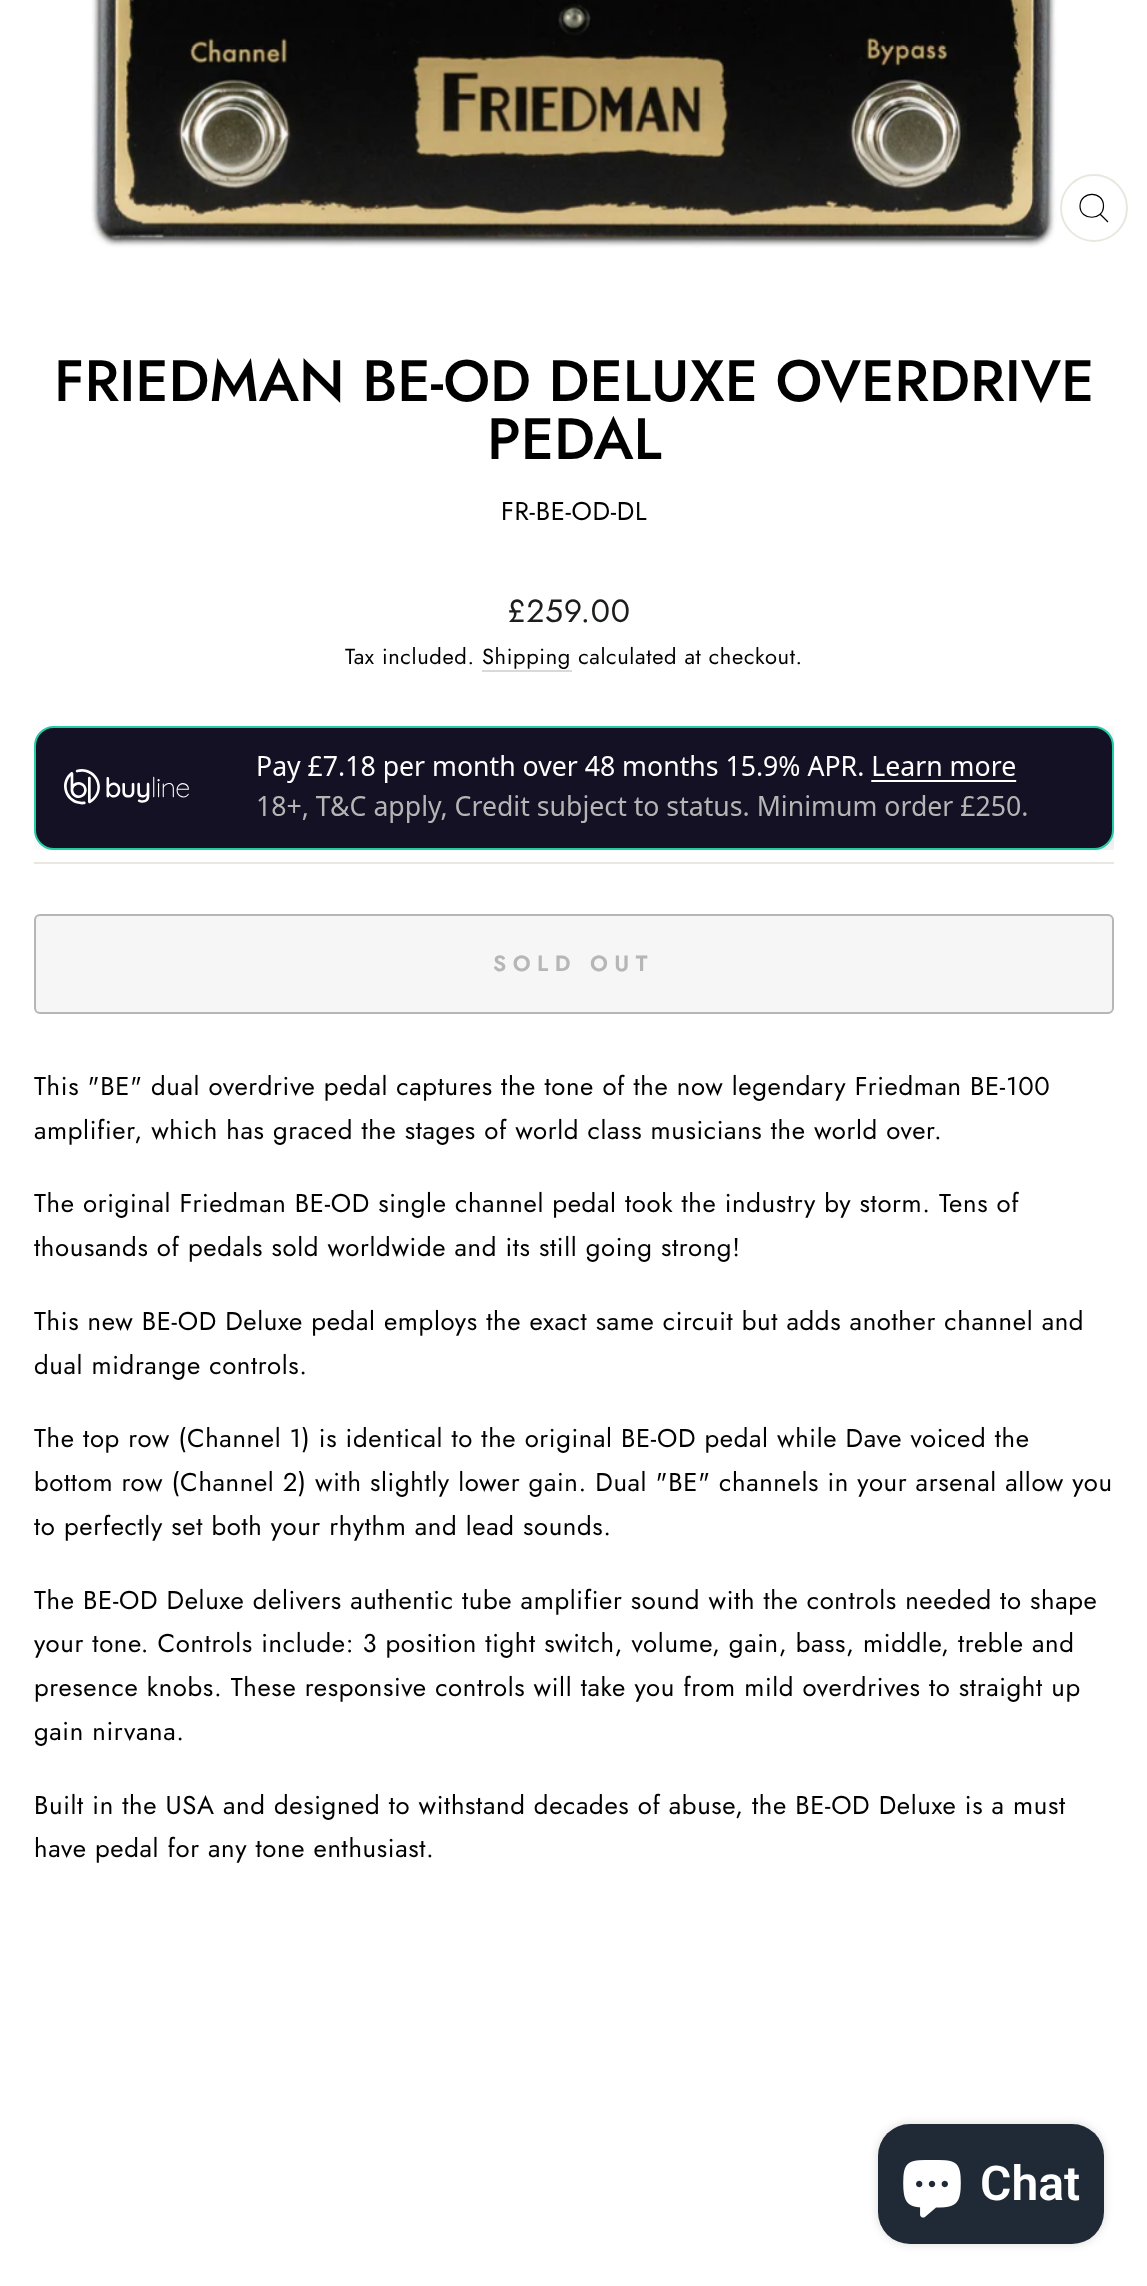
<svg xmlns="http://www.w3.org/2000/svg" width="1147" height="2286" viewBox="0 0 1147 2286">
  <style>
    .t1 { font: 500 58.4px Jost; fill: #000; }
    .t2 { font: 25.75px Jost; letter-spacing: 0.65px; fill: #000; }
    .t3 { font: 32px Jost; letter-spacing: 0.65px; fill: #1c1d1d; }
    .t4 { font: 21.9px Jost; letter-spacing: 0.65px; fill: #000; }
    .t5 { font: 600 22px Jost; letter-spacing: 6.5px; fill: #b6b6b6; }
    .t6 { font: 600 48px Roboto; fill: #fff; }
  </style>
  <rect width="100%" height="100%" fill="#fff"/>
  <image x="91" y="0" width="966" height="248" href="images/1.png"/>
  <circle cx="1094" cy="208" r="33" fill="none" stroke="#e8e8e1" stroke-width="2"/>
  <path d="M1103.5 206C1103.5 221 1080 221 1080 206C1080.5 190.5 1103.5 190.5 1103.5 206ZM1108 222L1100 214" fill="none" stroke="#000" stroke-width="1.2"/>
  <text x="54" y="401" class="t1">FRIEDMAN BE-OD DELUXE OVERDRIVE</text>
  <text x="487" y="459" class="t1">PEDAL</text>
  <text x="501" y="520" class="t2">FR-BE-OD-DL</text>
  <text x="507" y="622" class="t3">£259.00</text>
  <text x="345" y="664" class="t4">Tax included. Shipping calculated at checkout.</text>
  <rect x="482" y="670" width="90" height="2" fill="#d9d9d9"/>
  <image x="34" y="726" width="1080" height="124" href="images/2.png"/>
  <rect x="34" y="862" width="1080" height="2" fill="#e8e8e1"/>
  <rect x="35" y="915" width="1078" height="98" rx="5" fill="#f6f6f6" stroke="#b6b6b6" stroke-width="2"/>
  <text x="493" y="971" class="t5">SOLD OUT</text>
  <text x="34" y="1095" class="t2">This "BE" dual overdrive pedal captures the tone of the now legendary Friedman BE-100</text>
  <text x="34" y="1139" class="t2">amplifier, which has graced the stages of world class musicians the world over.</text>
  <text x="34" y="1212" class="t2">The original Friedman BE-OD single channel pedal took the industry by storm. Tens of</text>
  <text x="34" y="1256" class="t2">thousands of pedals sold worldwide and its still going strong!</text>
  <text x="34" y="1330" class="t2">This new BE-OD Deluxe pedal employs the exact same circuit but adds another channel and</text>
  <text x="34" y="1374" class="t2">dual midrange controls.</text>
  <text x="34" y="1447" class="t2">The top row (Channel 1) is identical to the original BE-OD pedal while Dave voiced the</text>
  <text x="34" y="1491" class="t2">bottom row (Channel 2) with slightly lower gain. Dual "BE" channels in your arsenal allow you</text>
  <text x="34" y="1535" class="t2">to perfectly set both your rhythm and lead sounds.</text>
  <text x="34" y="1609" class="t2">The BE-OD Deluxe delivers authentic tube amplifier sound with the controls needed to shape</text>
  <text x="34" y="1652" class="t2">your tone. Controls include: 3 position tight switch, volume, gain, bass, middle, treble and</text>
  <text x="34" y="1696" class="t2">presence knobs. These responsive controls will take you from mild overdrives to straight up</text>
  <text x="34" y="1740" class="t2">gain nirvana.</text>
  <text x="34" y="1814" class="t2">Built in the USA and designed to withstand decades of abuse, the BE-OD Deluxe is a must</text>
  <text x="34" y="1857" class="t2">have pedal for any tone enthusiast.</text>
  <rect x="878" y="2124" width="226" height="120" rx="32" fill="#00000026" filter="blur(5px)"/>
  <rect x="878" y="2124" width="226" height="120" rx="32" fill="#202a36"/>
  <image x="903" y="2160" width="58" height="58" href="images/3.png"/>
  <text x="980" y="2200" class="t6">Chat</text>
</svg>
